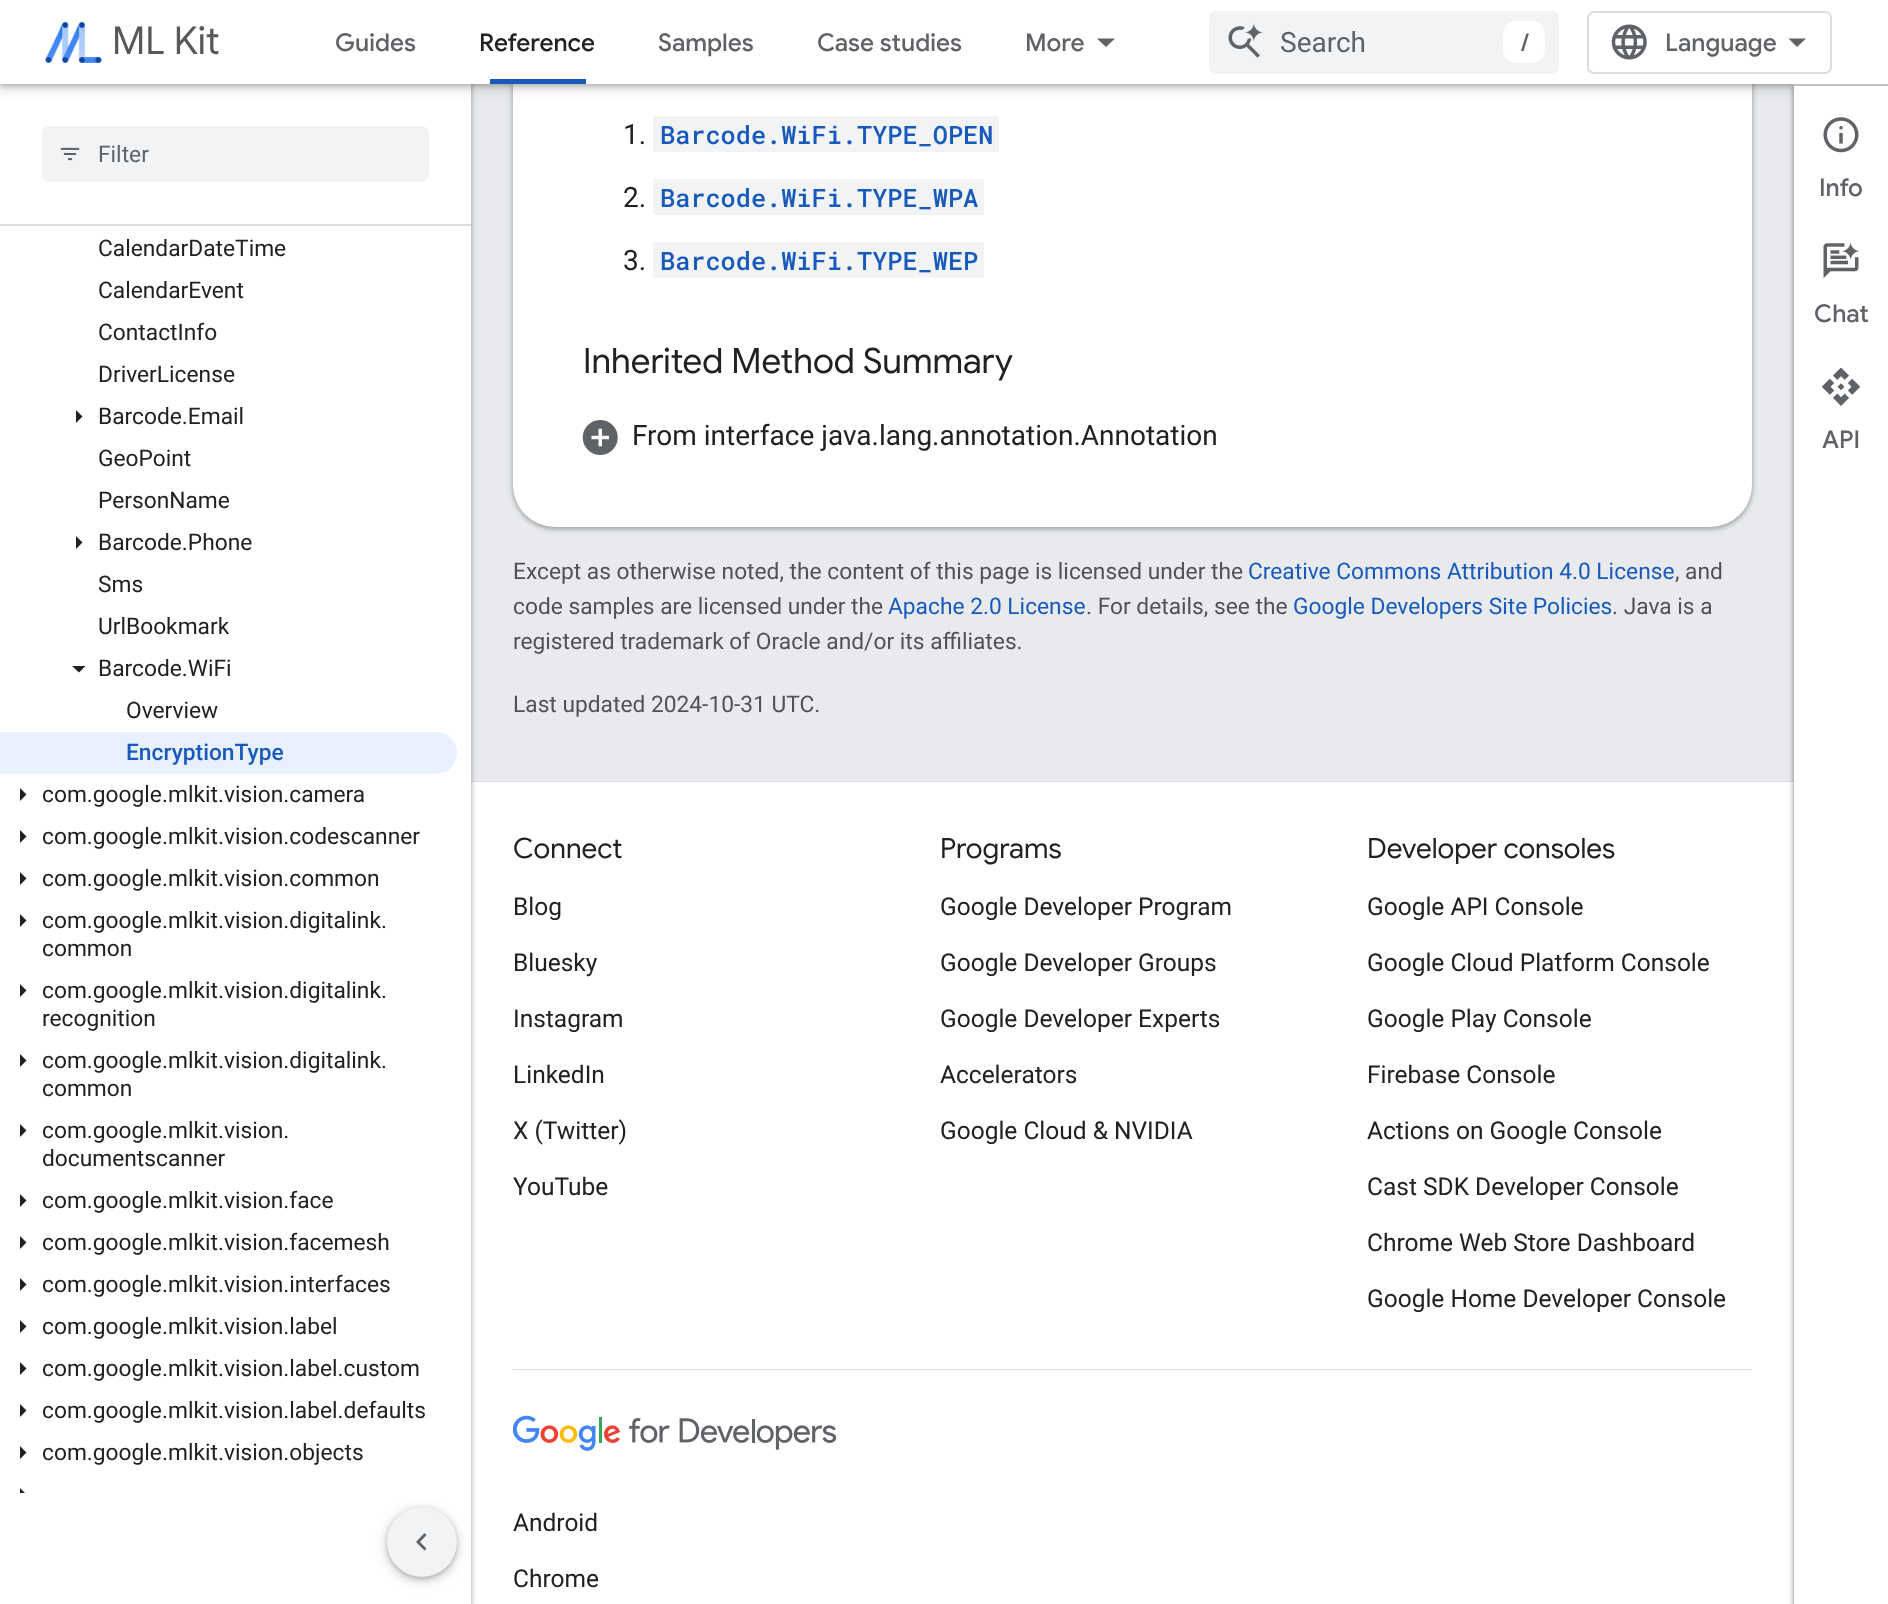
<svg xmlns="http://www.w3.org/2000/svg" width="1888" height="1604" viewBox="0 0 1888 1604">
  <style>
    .t1 { font: 38.5px Google Sans; fill: #595959; }
    .t2 { font: 500 24.5px Google Sans; fill: #5f6368; }
    .t3 { font: 500 24.5px Google Sans; fill: #202124; }
    .t4 { font: 28px Roboto; fill: #5f6368; }
    .t5 { font: 22.75px Roboto; fill: #5f6368; }
    .t6 { font: 22.75px Roboto; fill: #202124; }
    .t7 { font: 500 22.75px Roboto; fill: #185abc; }
    .t8 { font: 28px Roboto; fill: #202124; }
    .t9 { font: 500 25.25px Roboto Mono; fill: #185abc; }
    .t10 { font: 35px Google Sans; fill: #202124; }
    .t11 { font: 22.75px Roboto; fill: #515253; }
    .t12 { font: 22.75px Roboto; fill: #185abc; }
    .t13 { font: 28px Google Sans; fill: #202124; }
    .t14 { font: 24.5px Roboto; fill: #202124; }
  </style>
  <rect width="100%" height="100%" fill="#e8eaed"/>
  <rect x="471" y="781" width="1323" height="1" fill="#dadce0"/>
  <rect x="471" y="782" width="1323" height="822" fill="#fff"/>
  <rect x="-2" y="0" width="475" height="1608" fill="#3c404326" filter="blur(2.5px)"/>
  <rect x="0" y="2" width="471" height="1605" fill="#3c40434d" filter="blur(2px)"/>
  <rect x="0" y="226" width="471" height="1267" fill="#fff"/>
  <rect x="0" y="84" width="471" height="140" fill="#fff"/>
  <rect x="511" y="-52" width="1243" height="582" rx="44" fill="#3c404326" filter="blur(2.5px)"/>
  <rect x="513" y="-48" width="1239" height="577" rx="42" fill="#3c40434d" filter="blur(2px)"/>
  <rect x="513" y="-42" width="1239" height="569" rx="42" fill="#fff"/>
  <rect x="-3" y="-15" width="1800" height="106" fill="#3c404326" filter="blur(5px)"/>
  <rect x="0" y="-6" width="1794" height="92" fill="#3c40434d" filter="blur(2px)"/>
  <rect x="1792" y="84" width="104" height="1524" fill="#00000026" filter="blur(2.5px)"/>
  <rect x="1794" y="86" width="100" height="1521" fill="#0000004d" filter="blur(2px)"/>
  <rect x="0" y="0" width="1888" height="84" fill="#fff"/>
  <image x="45" y="21" width="57" height="42" href="images/1.png"/>
  <text x="112" y="54" class="t1">ML Kit</text>
  <text x="335" y="51" class="t2">Guides</text>
  <text x="479" y="51" class="t3">Reference</text>
  <rect x="490" y="79" width="96" height="5" fill="#185abc"/>
  <text x="658" y="51" class="t2">Samples</text>
  <text x="817" y="51" class="t2">Case studies</text>
  <text x="1025" y="51" class="t2">More</text>
  <path d="M1097 38.5H1115L1106 47Z" fill="#5f6368"/>
  <rect x="1209" y="11" width="350" height="63" rx="7" fill="#f1f3f4"/>
  <image x="1228" y="23" width="36" height="35" href="images/2.png"/>
  <text x="1280" y="52" class="t4">Search</text>
  <rect x="1503" y="21" width="42" height="42" rx="14" fill="#fff"/>
  <text x="1521" y="51" class="t2">/</text>
  <rect x="1588" y="12" width="243" height="61" rx="6" fill="none" stroke="#dadce0" stroke-width="2"/>
  <image x="1611" y="24" width="36" height="36" href="images/3.png"/>
  <text x="1665" y="51" class="t2">Language</text>
  <path d="M1797 47L1788.5 38.5H1806Z" fill="#5f6368"/>
  <rect x="0" y="224" width="471" height="2" fill="#dadce0"/>
  <rect x="42" y="126" width="387" height="56" rx="7" fill="#f1f3f4"/>
  <image x="60" y="147" width="20" height="14" href="images/4.png"/>
  <text x="98" y="162" class="t5">Filter</text>
  <text x="98" y="256" class="t6">CalendarDateTime</text>
  <text x="98" y="298" class="t6">CalendarEvent</text>
  <text x="98" y="340" class="t6">ContactInfo</text>
  <text x="98" y="382" class="t6">DriverLicense</text>
  <path d="M76 423V410L82.5 416.5Z" fill="#202124"/>
  <text x="98" y="424" class="t6">Barcode.Email</text>
  <text x="98" y="466" class="t6">GeoPoint</text>
  <text x="98" y="508" class="t6">PersonName</text>
  <path d="M76 549V536L82.5 542.5Z" fill="#202124"/>
  <text x="98" y="550" class="t6">Barcode.Phone</text>
  <text x="98" y="592" class="t6">Sms</text>
  <text x="98" y="634" class="t6">UrlBookmark</text>
  <path d="M72 666H85.5L79 672.5Z" fill="#202124"/>
  <text x="98" y="676" class="t6">Barcode.WiFi</text>
  <text x="126" y="718" class="t6">Overview</text>
  <path d="M0 732H436C447.5 732 457 741.5 457 753C457 764.5 447.5 774 436 774H0Z" fill="#e8f0fe"/>
  <text x="126" y="760" class="t7">EncryptionType</text>
  <path d="M20 801V788L26.5 794.5Z" fill="#202124"/>
  <text x="42" y="802" class="t6">com.google.mlkit.vision.camera</text>
  <path d="M20 843V830L26.5 836.5Z" fill="#202124"/>
  <text x="42" y="844" class="t6">com.google.mlkit.vision.codescanner</text>
  <path d="M20 885V872L26.5 878.5Z" fill="#202124"/>
  <text x="42" y="886" class="t6">com.google.mlkit.vision.common</text>
  <path d="M20 927V914L26.5 920.5Z" fill="#202124"/>
  <text x="42" y="928" class="t6">com.google.mlkit.vision.digitalink.</text>
  <text x="42" y="956" class="t6">common</text>
  <path d="M20 997V984L26.5 990.5Z" fill="#202124"/>
  <text x="42" y="998" class="t6">com.google.mlkit.vision.digitalink.</text>
  <text x="42" y="1026" class="t6">recognition</text>
  <path d="M20 1067V1054L26.5 1060.5Z" fill="#202124"/>
  <text x="42" y="1068" class="t6">com.google.mlkit.vision.digitalink.</text>
  <text x="42" y="1096" class="t6">common</text>
  <path d="M20 1137V1124L26.5 1130.5Z" fill="#202124"/>
  <text x="42" y="1138" class="t6">com.google.mlkit.vision.</text>
  <text x="42" y="1166" class="t6">documentscanner</text>
  <path d="M20 1207V1194L26.5 1200.5Z" fill="#202124"/>
  <text x="42" y="1208" class="t6">com.google.mlkit.vision.face</text>
  <path d="M20 1249V1236L26.5 1242.5Z" fill="#202124"/>
  <text x="42" y="1250" class="t6">com.google.mlkit.vision.facemesh</text>
  <path d="M20 1291V1278L26.5 1284.5Z" fill="#202124"/>
  <text x="42" y="1292" class="t6">com.google.mlkit.vision.interfaces</text>
  <path d="M20 1333V1320L26.5 1326.5Z" fill="#202124"/>
  <text x="42" y="1334" class="t6">com.google.mlkit.vision.label</text>
  <path d="M20 1375V1362L26.5 1368.5Z" fill="#202124"/>
  <text x="42" y="1376" class="t6">com.google.mlkit.vision.label.custom</text>
  <path d="M20 1417V1404L26.5 1410.5Z" fill="#202124"/>
  <text x="42" y="1418" class="t6">com.google.mlkit.vision.label.defaults</text>
  <path d="M20 1459V1446L26.5 1452.5ZM20 1501V1488L26.5 1494.5Z" fill="#202124"/>
  <text x="42" y="1460" class="t6">com.google.mlkit.vision.objects</text>
  <text x="623" y="144" class="t8">1.</text>
  <rect x="653" y="116" width="346" height="36" fill="#f1f3f4"/>
  <text x="660" y="144" class="t9">Barcode.WiFi.TYPE_OPEN</text>
  <text x="623" y="207" class="t8">2.</text>
  <rect x="653" y="179" width="331" height="36" fill="#f1f3f4"/>
  <text x="660" y="207" class="t9">Barcode.WiFi.TYPE_WPA</text>
  <text x="623" y="270" class="t8">3.</text>
  <rect x="653" y="242" width="331" height="36" fill="#f1f3f4"/>
  <text x="660" y="270" class="t9">Barcode.WiFi.TYPE_WEP</text>
  <text x="583" y="373" class="t10">Inherited Method Summary</text>
  <image x="582" y="420" width="36" height="35" href="images/5.png"/>
  <text x="632" y="445" class="t8">From interface java.lang.annotation.Annotation</text>
  <text x="513" y="579" class="t11">Except as otherwise noted, the content of this page is licensed under the</text>
  <text x="1248" y="579" class="t12">Creative Commons Attribution 4.0 License</text>
  <text x="1675" y="579" class="t11">, and</text>
  <text x="513" y="614" class="t11">code samples are licensed under the</text>
  <text x="888" y="614" class="t12">Apache 2.0 License</text>
  <text x="1086" y="614" class="t11">. For details, see the</text>
  <text x="1293" y="614" class="t12">Google Developers Site Policies</text>
  <text x="1612" y="614" class="t11">. Java is a</text>
  <text x="513" y="649" class="t11">registered trademark of Oracle and/or its affiliates.</text>
  <text x="513" y="712" class="t11">Last updated 2024-10-31 UTC.</text>
  <rect x="1794" y="86" width="94" height="1518" fill="#fff"/>
  <rect x="1794" y="84" width="94" height="2" fill="#bdc1c6"/>
  <image x="1823" y="117" width="36" height="36" href="images/6.png"/>
  <text x="1819" y="196" class="t2">Info</text>
  <image x="1823" y="242" width="37" height="37" href="images/7.png"/>
  <text x="1814" y="322" class="t2">Chat</text>
  <image x="1822" y="368" width="38" height="38" href="images/8.png"/>
  <text x="1822" y="448" class="t2">API</text>
  <rect x="513" y="1369" width="1239" height="1" fill="#dadce0"/>
  <text x="513" y="858" class="t13">Connect</text>
  <text x="513" y="915" class="t14">Blog</text>
  <text x="513" y="971" class="t14">Bluesky</text>
  <text x="513" y="1027" class="t14">Instagram</text>
  <text x="513" y="1083" class="t14">LinkedIn</text>
  <text x="513" y="1139" class="t14">X (Twitter)</text>
  <text x="513" y="1195" class="t14">YouTube</text>
  <text x="940" y="858" class="t13">Programs</text>
  <text x="940" y="915" class="t14">Google Developer Program</text>
  <text x="940" y="971" class="t14">Google Developer Groups</text>
  <text x="940" y="1027" class="t14">Google Developer Experts</text>
  <text x="940" y="1083" class="t14">Accelerators</text>
  <text x="940" y="1139" class="t14">Google Cloud &amp; NVIDIA</text>
  <text x="1367" y="858" class="t13">Developer consoles</text>
  <text x="1367" y="915" class="t14">Google API Console</text>
  <text x="1367" y="971" class="t14">Google Cloud Platform Console</text>
  <text x="1367" y="1027" class="t14">Google Play Console</text>
  <text x="1367" y="1083" class="t14">Firebase Console</text>
  <text x="1367" y="1139" class="t14">Actions on Google Console</text>
  <text x="1367" y="1195" class="t14">Cast SDK Developer Console</text>
  <text x="1367" y="1251" class="t14">Chrome Web Store Dashboard</text>
  <text x="1367" y="1307" class="t14">Google Home Developer Console</text>
  <image x="513" y="1415" width="324" height="36" href="images/9.png"/>
  <text x="513" y="1531" class="t14">Android</text>
  <text x="513" y="1587" class="t14">Chrome</text>
  <rect x="0" y="1493" width="471" height="111" fill="#fff"/>
  <rect x="383" y="1507" width="77" height="77" rx="38.5" fill="#3c404326" filter="blur(5px)"/>
  <rect x="387" y="1509" width="70" height="70" rx="35" fill="#3c40434d" filter="blur(2px)"/>
  <circle cx="422" cy="1542" r="35" fill="#f1f3f4"/>
  <path d="M426.5 1535L420 1542L426.5 1548.5L424.5 1550.5L416 1542L424.5 1533Z" fill="#5f6368"/>
</svg>
